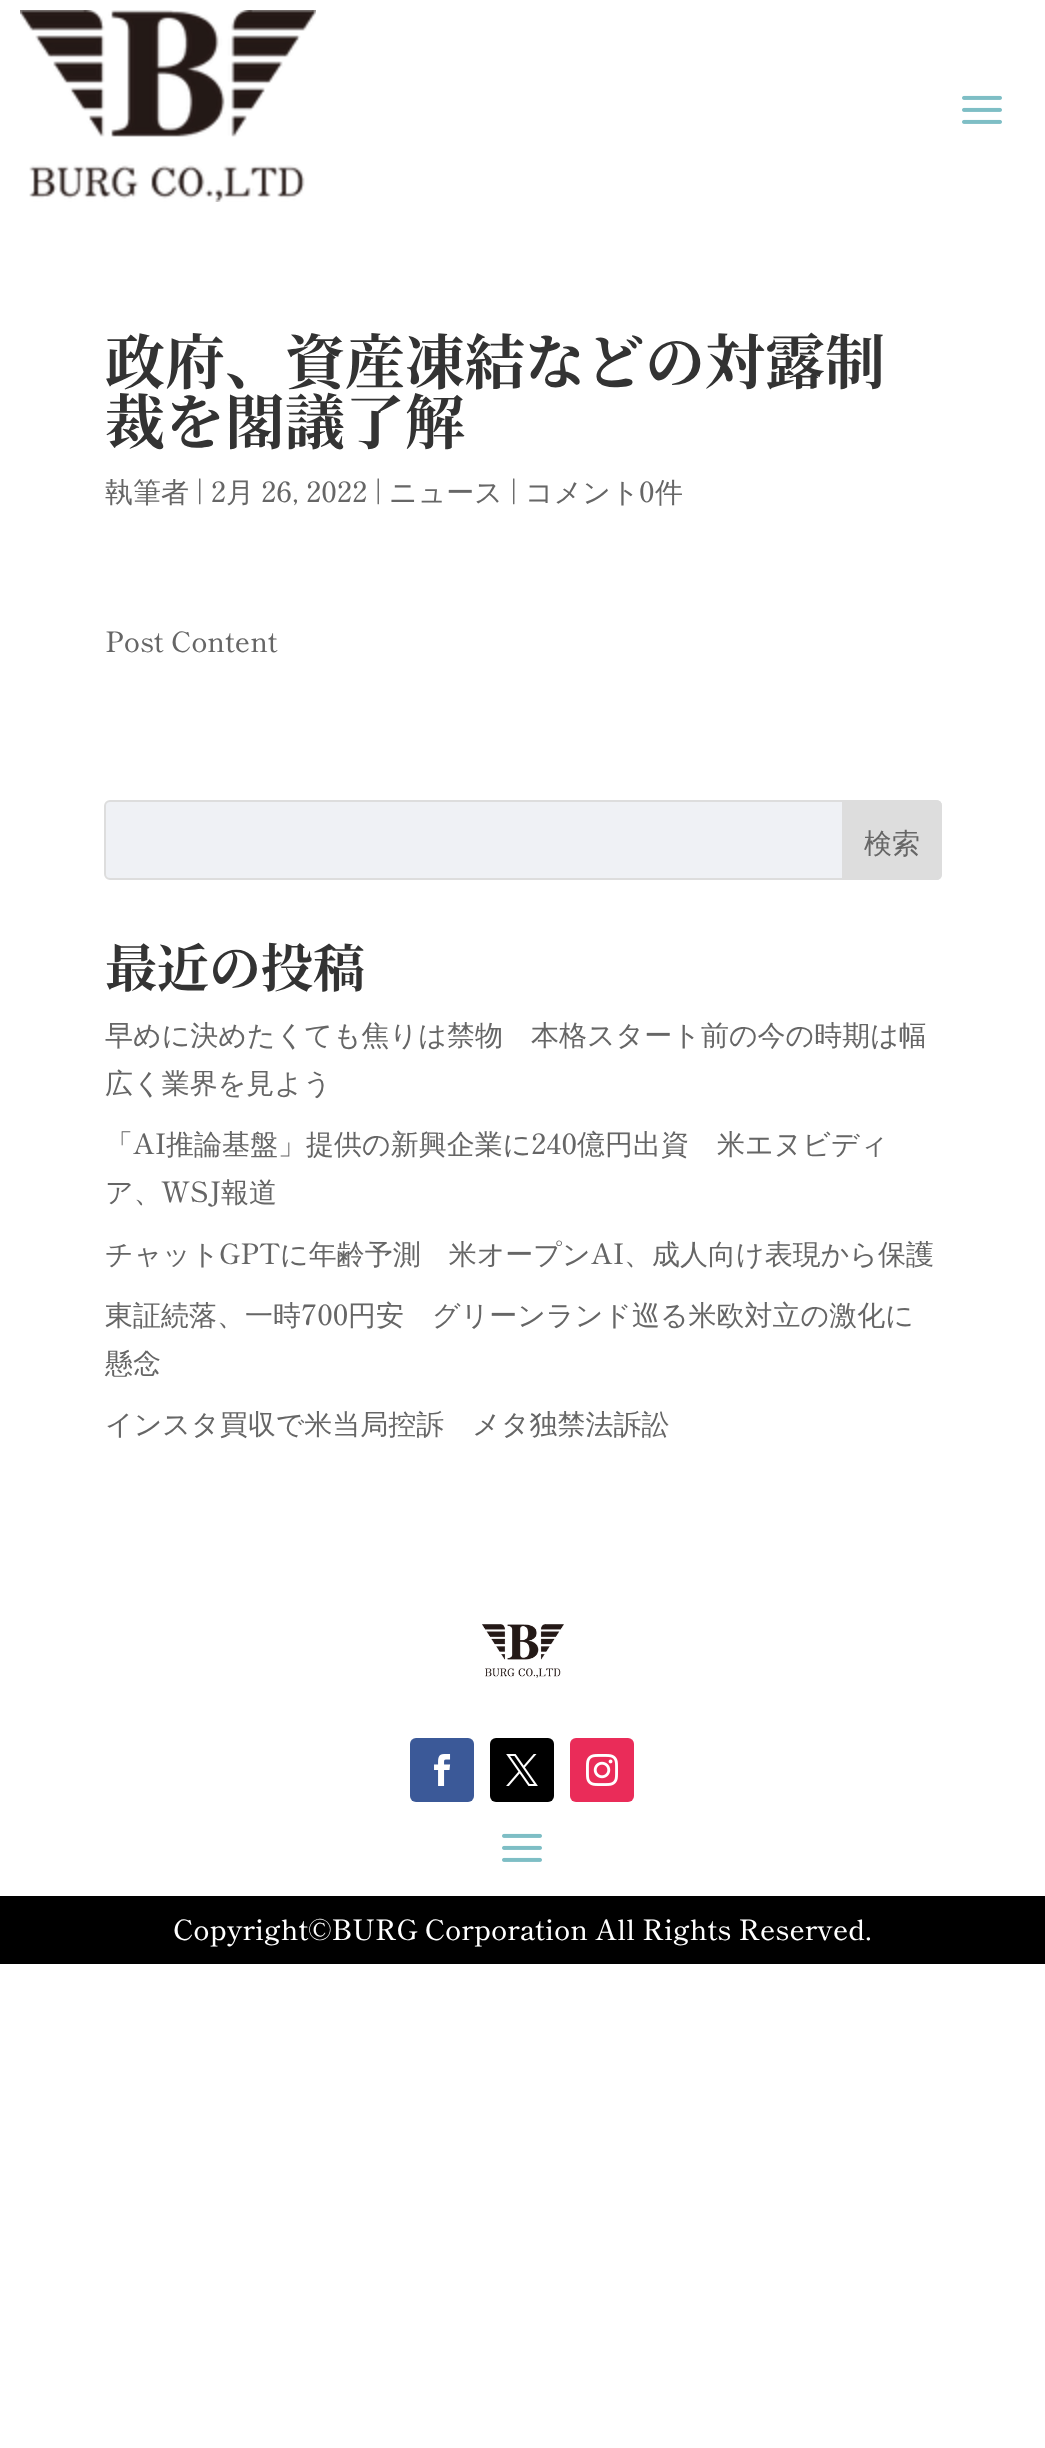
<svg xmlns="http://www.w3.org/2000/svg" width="1045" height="2448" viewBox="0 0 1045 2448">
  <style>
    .t1 { font: bold 60px Noto Serif JP; fill: #333; }
    .t2 { font: 500 28px WenQuanYi Zen Hei; fill: #666; }
    .t3 { font: 500 28px 'Shippori Mincho B1'; fill: #666; }
    .t4 { font: bold 52px Noto Serif JP; fill: #333; }
    .t5 { font: 500 28px 'Shippori Mincho B1'; fill: #fff; }
  </style>
  <rect width="100%" height="100%" fill="#fff"/>
  <image x="20" y="10" width="296" height="192" href="images/1.png"/>
  <image x="962" y="95" width="40" height="29" href="images/2.png"/>
  <text x="105" y="384" class="t1">政府、資産凍結などの対露制</text>
  <text x="105" y="444" class="t1">裁を閣議了解</text>
  <text x="105" y="502" class="t2">執筆者</text>
  <text x="196" y="502" class="t3">| 2</text>
  <text x="226" y="502" class="t2">月</text>
  <text x="261" y="502" class="t3">26, 2022 |</text>
  <text x="389" y="502" class="t2">ニュース</text>
  <text x="510" y="502" class="t3">|</text>
  <text x="525" y="502" class="t2">コメント</text>
  <text x="639" y="502" class="t3">0</text>
  <text x="655" y="502" class="t2">件</text>
  <text x="105" y="652" class="t3">Post Content</text>
  <rect x="105" y="801" width="836" height="78" rx="5" fill="#eff1f5" stroke="#ddd" stroke-width="2"/>
  <path d="M843 801H936C939 801 941 803 941 806V874C941 877 939 879 936 879H843Z" fill="#ddd" stroke="#ddd" stroke-width="2"/>
  <text x="864" y="853" class="t2">検索</text>
  <text x="105" y="987" class="t4">最近の投稿</text>
  <text x="105" y="1045" class="t2">早めに決めたくても焦りは禁物　本格スタート前の今の時期は幅</text>
  <text x="105" y="1093" class="t2">広く業界を見よう</text>
  <text x="105" y="1154" class="t2">「</text>
  <text x="133" y="1154" class="t3">AI</text>
  <text x="166" y="1154" class="t2">推論基盤」提供の新興企業に</text>
  <text x="531" y="1154" class="t3">240</text>
  <text x="577" y="1154" class="t2">億円出資　米エヌビディ</text>
  <text x="105" y="1202" class="t2">ア、</text>
  <text x="161" y="1202" class="t3">WSJ</text>
  <text x="221" y="1202" class="t2">報道</text>
  <text x="105" y="1264" class="t2">チャット</text>
  <text x="219" y="1264" class="t3">GPT</text>
  <text x="280" y="1264" class="t2">に年齢予測　米オープン</text>
  <text x="591" y="1264" class="t3">AI</text>
  <text x="624" y="1264" class="t2">、成人向け表現から保護</text>
  <text x="105" y="1325" class="t2">東証続落、一時</text>
  <text x="301" y="1325" class="t3">700</text>
  <text x="348" y="1325" class="t2">円安　グリーンランド巡る米欧対立の激化に</text>
  <text x="105" y="1373" class="t2">懸念</text>
  <text x="105" y="1434" class="t2">インスタ買収で米当局控訴　メタ独禁法訴訟</text>
  <image x="482" y="1624" width="82" height="54" href="images/3.png"/>
  <rect x="410" y="1738" width="64" height="64" rx="6" fill="#3b5998"/>
  <image x="434" y="1754" width="17" height="32" href="images/4.png"/>
  <rect x="490" y="1738" width="64" height="64" rx="6" fill="#000"/>
  <image x="506" y="1754" width="32" height="32" href="images/5.png"/>
  <rect x="570" y="1738" width="64" height="64" rx="6" fill="#ea2c59"/>
  <image x="586" y="1754" width="32" height="32" href="images/6.png"/>
  <image x="502" y="1833" width="40" height="29" href="images/2.png"/>
  <rect x="0" y="1896" width="1045" height="68" fill="#000"/>
  <text x="173" y="1940" class="t5">Copyright©BURG Corporation All Rights Reserved.</text>
</svg>
